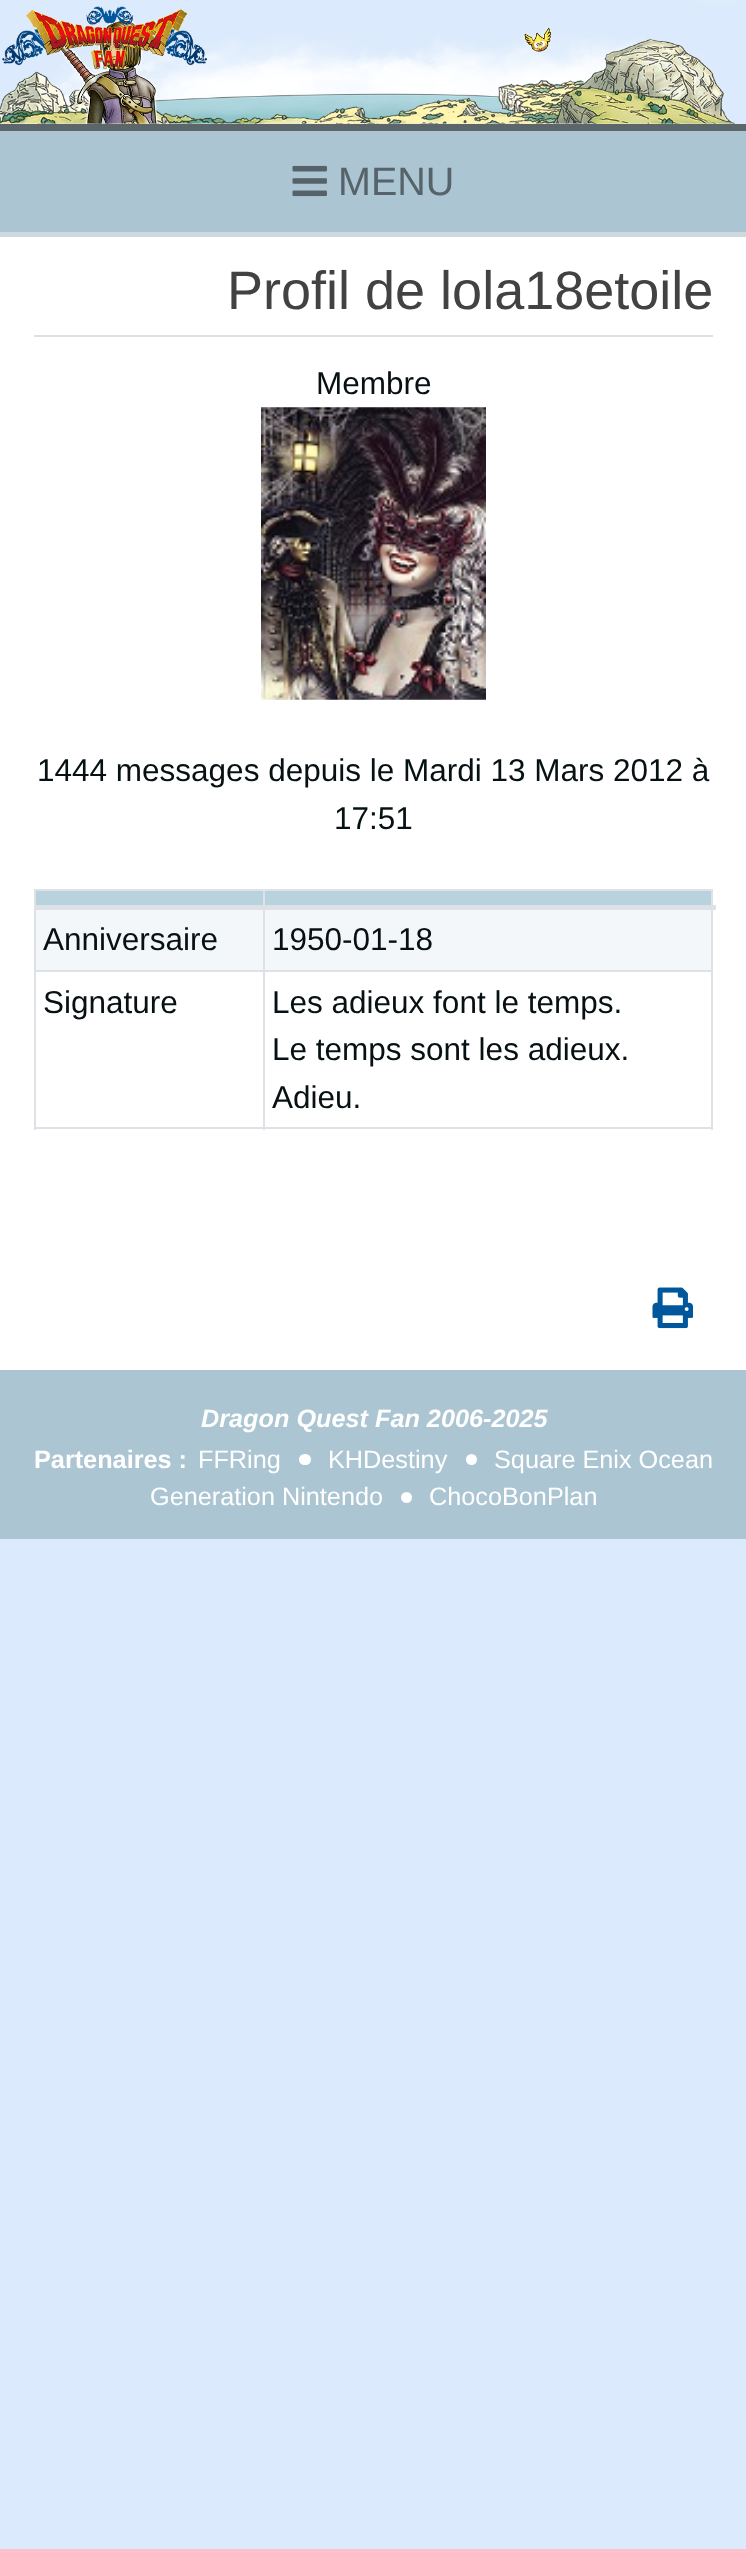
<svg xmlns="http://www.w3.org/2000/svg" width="746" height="2549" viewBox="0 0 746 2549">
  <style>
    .t1 { font: 39.5px Liberation Sans; fill: #56636a; }
    .t2 { font: 54px Liberation Sans; fill: #424242; }
    .t3 { font: 31.5px Liberation Sans; fill: #071013; }
    .t4 { font: italic bold 25.25px Liberation Sans; fill: #fff; }
    .t5 { font: bold 25.25px Liberation Sans; fill: #fff; }
    .t6 { font: 25.25px Liberation Sans; fill: #fff; }
  </style>
  <rect width="100%" height="100%" fill="#dbeafc"/>
  <image x="0" y="0" width="736" height="124" href="images/1.png"/>
  <image x="59" y="19" width="99" height="105" href="images/3.png"/>
  <image x="2" y="6" width="205" height="64" href="images/2.png"/>
  <image x="523" y="27" width="29" height="26" href="images/4.png"/>
  <rect x="0" y="131" width="746" height="101" fill="#acc5d3"/>
  <rect x="0" y="124" width="746" height="7" fill="#5c666a"/>
  <rect x="0" y="232" width="746" height="5" fill="#cfd9dd"/>
  <image x="292" y="165" width="35" height="32" href="images/5.png"/>
  <text x="338" y="195" class="t1">MENU</text>
  <rect x="0" y="237" width="746" height="1133" fill="#fff"/>
  <rect x="34" y="335" width="679" height="2" fill="#e0e0e0"/>
  <text x="227" y="309" class="t2">Profil de lola18etoile</text>
  <text x="316" y="394" class="t3">Membre</text>
  <image x="261" y="407" width="225" height="293" href="images/6.png"/>
  <text x="37" y="781" class="t3">1444 messages depuis le Mardi 13 Mars 2012 à</text>
  <text x="334" y="829" class="t3">17:51</text>
  <rect x="34" y="889" width="679" height="2" fill="#dee2e6"/>
  <rect x="711" y="889" width="2" height="241" fill="#dee2e6"/>
  <rect x="34" y="1127" width="679" height="2" fill="#dee2e6"/>
  <rect x="34" y="889" width="2" height="241" fill="#dee2e6"/>
  <rect x="36" y="891" width="675" height="14" fill="#b8d2de"/>
  <rect x="36" y="910" width="675" height="60" fill="#f4f7fa"/>
  <rect x="263" y="970" width="450" height="2" fill="#dee2e6"/>
  <rect x="263" y="970" width="2" height="160" fill="#dee2e6"/>
  <rect x="34" y="970" width="232" height="2" fill="#dee2e6"/>
  <rect x="263" y="889" width="2" height="83" fill="#dee2e6"/>
  <rect x="34" y="905" width="682" height="5" fill="#dee2e6"/>
  <text x="43" y="950" class="t3">Anniversaire</text>
  <text x="272" y="950" class="t3">1950-01-18</text>
  <text x="43" y="1013" class="t3">Signature</text>
  <text x="272" y="1013" class="t3">Les adieux font le temps.</text>
  <text x="272" y="1060" class="t3">Le temps sont les adieux.</text>
  <text x="272" y="1108" class="t3">Adieu.</text>
  <image x="652" y="1287" width="41" height="42" href="images/7.png"/>
  <rect x="0" y="1370" width="746" height="169" fill="#acc5d3"/>
  <text x="201" y="1427" class="t4">Dragon Quest Fan 2006-2025</text>
  <text x="34" y="1468" class="t5">Partenaires :</text>
  <text x="198" y="1468" class="t6">FFRing</text>
  <rect x="299" y="1454" width="12" height="11" rx="5.5" fill="#fff"/>
  <text x="328" y="1468" class="t6">KHDestiny</text>
  <circle cx="471.5" cy="1459.5" r="5.5" fill="#fff"/>
  <text x="494" y="1468" class="t6">Square Enix Ocean</text>
  <text x="150" y="1505" class="t6">Generation Nintendo</text>
  <circle cx="406.5" cy="1497.5" r="5.5" fill="#fff"/>
  <text x="429" y="1505" class="t6">ChocoBonPlan</text>
</svg>
